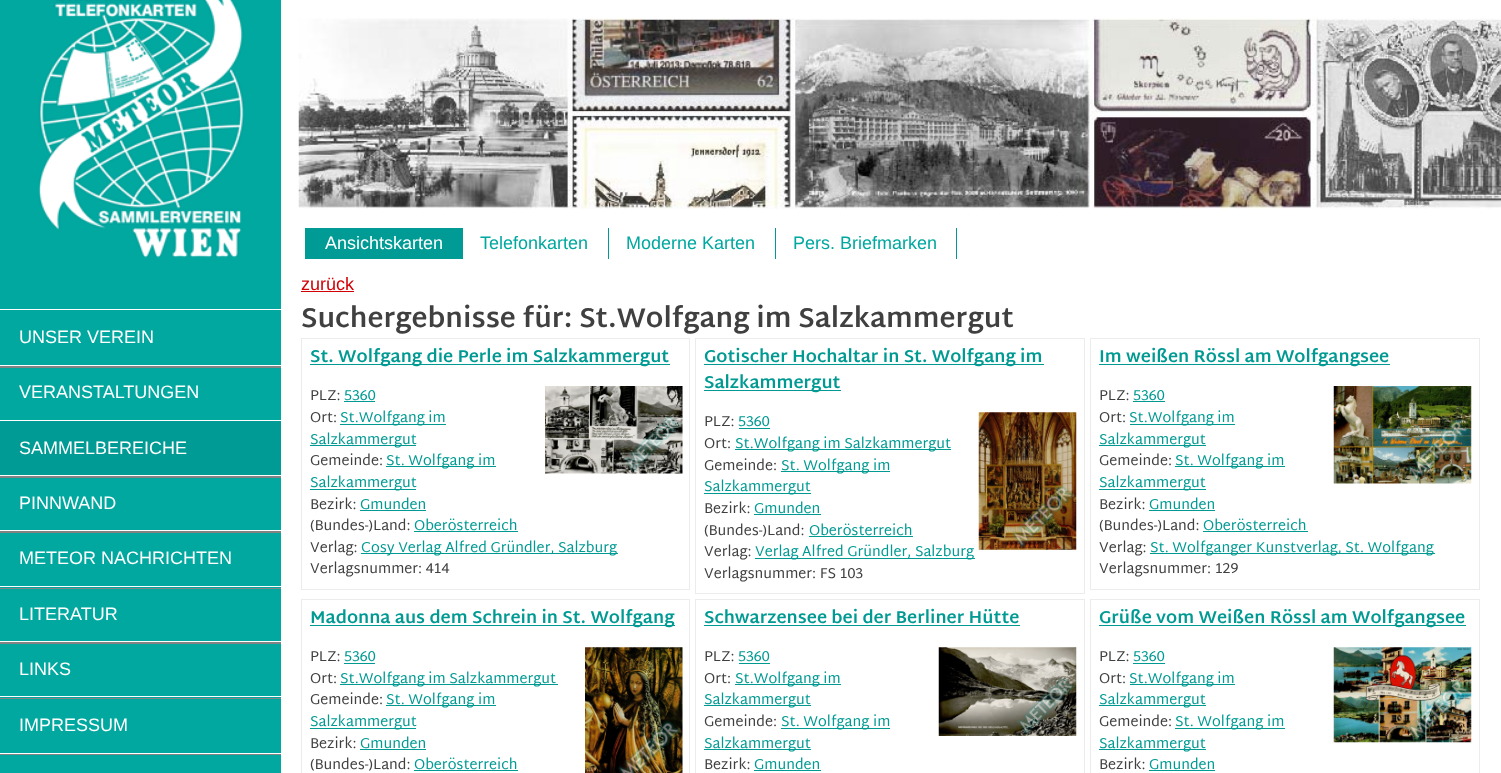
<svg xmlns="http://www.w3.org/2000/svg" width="1501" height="773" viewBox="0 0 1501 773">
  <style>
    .t1 { font: 18px Liberation Sans; fill: #fff; }
    .t2 { font: 18px Liberation Sans; fill: #00a8a0; }
    .t3 { font: 18px Liberation Sans; fill: #d20005; }
    .t4 { font: bold 27.3px Martel Sans; fill: #404040; }
    .t5 { font: bold 17.3px Martel Sans; fill: #009a93; }
    .t6 { font: 14.4px Martel Sans; fill: #404040; }
    .t7 { font: 14.4px Martel Sans; fill: #009a93; }
  </style>
  <rect width="100%" height="100%" fill="#fff"/>
  <rect x="0" y="0" width="281" height="773" fill="#00a8a0"/>
  <image x="38" y="0" width="206" height="258" href="images/1.png"/>
  <rect x="0" y="309" width="281" height="1" fill="#fff"/>
  <rect x="0" y="476" width="281" height="2" fill="#838383"/>
  <rect x="0" y="421" width="281" height="54" fill="#009b94"/>
  <rect x="0" y="475" width="281" height="1" fill="#fff"/>
  <rect x="305" y="228" width="158" height="31" fill="#009b94"/>
  <text x="325" y="249" class="t1">Ansichtskarten</text>
  <rect x="608" y="228" width="1" height="31" fill="#009a93"/>
  <text x="480" y="249" class="t2">Telefonkarten</text>
  <rect x="775" y="228" width="1" height="31" fill="#009a93"/>
  <text x="626" y="249" class="t2">Moderne Karten</text>
  <rect x="956" y="228" width="1" height="31" fill="#009a93"/>
  <text x="793" y="249" class="t2">Pers. Briefmarken</text>
  <text x="19" y="454" class="t1">SAMMELBEREICHE</text>
  <rect x="0" y="366" width="281" height="2" fill="#838383"/>
  <rect x="0" y="365" width="281" height="1" fill="#fff"/>
  <text x="19" y="343" class="t1">UNSER VEREIN</text>
  <rect x="0" y="420" width="281" height="1" fill="#fff"/>
  <text x="19" y="398" class="t1">VERANSTALTUNGEN</text>
  <rect x="0" y="531" width="281" height="2" fill="#838383"/>
  <rect x="0" y="530" width="281" height="1" fill="#fff"/>
  <text x="19" y="509" class="t1">PINNWAND</text>
  <rect x="0" y="588" width="281" height="1" fill="#838383"/>
  <rect x="0" y="586" width="281" height="1" fill="#fff"/>
  <text x="19" y="564" class="t1">METEOR NACHRICHTEN</text>
  <rect x="0" y="642" width="281" height="2" fill="#838383"/>
  <rect x="0" y="641" width="281" height="1" fill="#fff"/>
  <text x="19" y="620" class="t1">LITERATUR</text>
  <rect x="0" y="698" width="281" height="1" fill="#838383"/>
  <rect x="0" y="696" width="281" height="1" fill="#fff"/>
  <text x="19" y="675" class="t1">LINKS</text>
  <rect x="0" y="754" width="281" height="1" fill="#838383"/>
  <rect x="0" y="753" width="281" height="1" fill="#fff"/>
  <text x="19" y="731" class="t1">IMPRESSUM</text>
  <image x="298" y="18" width="1203" height="191" href="images/2.png"/>
  <text x="301" y="290" class="t3">zurück</text>
  <rect x="301" y="291" width="53" height="1" fill="#d20005"/>
  <text x="301" y="327" class="t4">Suchergebnisse für: St.Wolfgang im Salzkammergut</text>
  <rect x="301.5" y="338.5" width="388" height="251" fill="none" stroke="#ececec"/>
  <rect x="310" y="364" width="360" height="1" fill="#009a93"/>
  <text x="310" y="362" class="t5">St. Wolfgang die Perle im Salzkammergut</text>
  <text x="310" y="400" class="t6">PLZ:</text>
  <text x="344" y="400" class="t7">5360</text>
  <rect x="344" y="401" width="31" height="1" fill="#009a93"/>
  <image x="545" y="386" width="138" height="88" href="images/3.png"/>
  <text x="310" y="422" class="t6">Ort:</text>
  <rect x="340" y="424" width="106" height="1" fill="#009a93"/>
  <text x="340" y="422" class="t7">St.Wolfgang im</text>
  <rect x="310" y="445" width="106" height="1" fill="#009a93"/>
  <text x="310" y="444" class="t7">Salzkammergut</text>
  <text x="310" y="465" class="t6">Gemeinde:</text>
  <rect x="386" y="466" width="110" height="1" fill="#009a93"/>
  <text x="386" y="465" class="t7">St. Wolfgang im</text>
  <rect x="310" y="489" width="106" height="1" fill="#009a93"/>
  <text x="310" y="487" class="t7">Salzkammergut</text>
  <text x="310" y="509" class="t6">Bezirk:</text>
  <text x="360" y="509" class="t7">Gmunden</text>
  <rect x="360" y="510" width="66" height="1" fill="#009a93"/>
  <text x="310" y="530" class="t6">(Bundes-)Land:</text>
  <text x="414" y="530" class="t7">Oberösterreich</text>
  <rect x="414" y="531" width="104" height="1" fill="#009a93"/>
  <text x="310" y="552" class="t6">Verlag:</text>
  <rect x="361" y="553" width="257" height="1" fill="#009a93"/>
  <text x="361" y="552" class="t7">Cosy Verlag Alfred Gründler, Salzburg</text>
  <text x="310" y="573" class="t6">Verlagsnummer: 414</text>
  <rect x="695.5" y="338.5" width="389" height="255" fill="none" stroke="#ececec"/>
  <rect x="704" y="364" width="340" height="1" fill="#009a93"/>
  <text x="704" y="362" class="t5">Gotischer Hochaltar in St. Wolfgang im</text>
  <rect x="704" y="390" width="137" height="1" fill="#009a93"/>
  <text x="704" y="388" class="t5">Salzkammergut</text>
  <text x="704" y="426" class="t6">PLZ:</text>
  <text x="738" y="426" class="t7">5360</text>
  <rect x="739" y="428" width="31" height="1" fill="#009a93"/>
  <image x="978" y="412" width="99" height="138" href="images/4.png"/>
  <text x="704" y="448" class="t6">Ort:</text>
  <rect x="735" y="449" width="216" height="1" fill="#009a93"/>
  <text x="735" y="448" class="t7">St.Wolfgang im Salzkammergut</text>
  <text x="704" y="470" class="t6">Gemeinde:</text>
  <rect x="781" y="471" width="109" height="1" fill="#009a93"/>
  <text x="781" y="470" class="t7">St. Wolfgang im</text>
  <rect x="704" y="493" width="107" height="1" fill="#009a93"/>
  <text x="704" y="491" class="t7">Salzkammergut</text>
  <text x="704" y="513" class="t6">Bezirk:</text>
  <text x="754" y="513" class="t7">Gmunden</text>
  <rect x="754" y="514" width="67" height="1" fill="#009a93"/>
  <text x="704" y="535" class="t6">(Bundes-)Land:</text>
  <text x="809" y="535" class="t7">Oberösterreich</text>
  <rect x="809" y="536" width="104" height="1" fill="#009a93"/>
  <text x="704" y="556" class="t6">Verlag:</text>
  <rect x="755" y="558" width="220" height="1" fill="#009a93"/>
  <text x="755" y="556" class="t7">Verlag Alfred Gründler, Salzburg</text>
  <text x="704" y="578" class="t6">Verlagsnummer: FS 103</text>
  <rect x="1090.5" y="338.5" width="389" height="251" fill="none" stroke="#ececec"/>
  <rect x="1099" y="364" width="291" height="1" fill="#009a93"/>
  <text x="1099" y="362" class="t5">Im weißen Rössl am Wolfgangsee</text>
  <text x="1099" y="400" class="t6">PLZ:</text>
  <text x="1133" y="400" class="t7">5360</text>
  <rect x="1133" y="401" width="32" height="1" fill="#009a93"/>
  <image x="1333" y="386" width="139" height="98" href="images/5.png"/>
  <text x="1099" y="422" class="t6">Ort:</text>
  <rect x="1130" y="424" width="105" height="1" fill="#009a93"/>
  <text x="1129" y="422" class="t7">St.Wolfgang im</text>
  <rect x="1099" y="445" width="107" height="1" fill="#009a93"/>
  <text x="1099" y="444" class="t7">Salzkammergut</text>
  <text x="1099" y="465" class="t6">Gemeinde:</text>
  <rect x="1175" y="466" width="110" height="1" fill="#009a93"/>
  <text x="1175" y="465" class="t7">St. Wolfgang im</text>
  <rect x="1099" y="489" width="107" height="1" fill="#009a93"/>
  <text x="1099" y="487" class="t7">Salzkammergut</text>
  <text x="1099" y="509" class="t6">Bezirk:</text>
  <text x="1149" y="509" class="t7">Gmunden</text>
  <rect x="1149" y="510" width="66" height="1" fill="#009a93"/>
  <text x="1099" y="530" class="t6">(Bundes-)Land:</text>
  <text x="1203" y="530" class="t7">Oberösterreich</text>
  <rect x="1203" y="531" width="105" height="1" fill="#009a93"/>
  <text x="1099" y="552" class="t6">Verlag:</text>
  <rect x="1150" y="553" width="285" height="1" fill="#009a93"/>
  <text x="1150" y="552" class="t7">St. Wolfganger Kunstverlag, St. Wolfgang</text>
  <text x="1099" y="573" class="t6">Verlagsnummer: 129</text>
  <rect x="301.5" y="599.5" width="388" height="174" fill="none" stroke="#ececec"/>
  <rect x="310" y="625" width="365" height="1" fill="#009a93"/>
  <text x="310" y="623" class="t5">Madonna aus dem Schrein in St. Wolfgang</text>
  <text x="310" y="661" class="t6">PLZ:</text>
  <text x="344" y="661" class="t7">5360</text>
  <rect x="344" y="663" width="31" height="1" fill="#009a93"/>
  <image x="585" y="647" width="98" height="126" href="images/6.png"/>
  <text x="310" y="683" class="t6">Ort:</text>
  <rect x="340" y="684" width="218" height="1" fill="#009a93"/>
  <text x="340" y="683" class="t7">St.Wolfgang im Salzkammergut</text>
  <text x="310" y="704" class="t6">Gemeinde:</text>
  <rect x="386" y="705" width="110" height="1" fill="#009a93"/>
  <text x="386" y="704" class="t7">St. Wolfgang im</text>
  <rect x="310" y="728" width="106" height="1" fill="#009a93"/>
  <text x="310" y="726" class="t7">Salzkammergut</text>
  <text x="310" y="748" class="t6">Bezirk:</text>
  <text x="360" y="748" class="t7">Gmunden</text>
  <rect x="360" y="749" width="66" height="1" fill="#009a93"/>
  <text x="310" y="769" class="t6">(Bundes-)Land:</text>
  <text x="414" y="769" class="t7">Oberösterreich</text>
  <rect x="414" y="770" width="104" height="1" fill="#009a93"/>
  <rect x="695.5" y="599.5" width="389" height="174" fill="none" stroke="#ececec"/>
  <text x="704" y="623" class="t5">Schwarzensee bei der Berliner Hütte</text>
  <rect x="704" y="625" width="316" height="1" fill="#009a93"/>
  <text x="704" y="661" class="t6">PLZ:</text>
  <text x="738" y="661" class="t7">5360</text>
  <rect x="739" y="663" width="31" height="1" fill="#009a93"/>
  <image x="938" y="647" width="139" height="89" href="images/7.png"/>
  <text x="704" y="683" class="t6">Ort:</text>
  <rect x="735" y="684" width="106" height="1" fill="#009a93"/>
  <text x="735" y="683" class="t7">St.Wolfgang im</text>
  <rect x="704" y="705" width="107" height="1" fill="#009a93"/>
  <text x="704" y="704" class="t7">Salzkammergut</text>
  <text x="704" y="726" class="t6">Gemeinde:</text>
  <rect x="781" y="728" width="109" height="1" fill="#009a93"/>
  <text x="781" y="726" class="t7">St. Wolfgang im</text>
  <rect x="704" y="749" width="107" height="1" fill="#009a93"/>
  <text x="704" y="748" class="t7">Salzkammergut</text>
  <text x="704" y="769" class="t6">Bezirk:</text>
  <text x="754" y="769" class="t7">Gmunden</text>
  <rect x="754" y="770" width="67" height="1" fill="#009a93"/>
  <rect x="1090.5" y="599.5" width="389" height="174" fill="none" stroke="#ececec"/>
  <rect x="1099" y="625" width="367" height="1" fill="#009a93"/>
  <text x="1099" y="623" class="t5">Grüße vom Weißen Rössl am Wolfgangsee</text>
  <text x="1099" y="661" class="t6">PLZ:</text>
  <text x="1133" y="661" class="t7">5360</text>
  <rect x="1133" y="663" width="32" height="1" fill="#009a93"/>
  <image x="1333" y="647" width="139" height="96" href="images/8.png"/>
  <text x="1099" y="683" class="t6">Ort:</text>
  <rect x="1130" y="684" width="105" height="1" fill="#009a93"/>
  <text x="1129" y="683" class="t7">St.Wolfgang im</text>
  <rect x="1099" y="705" width="107" height="1" fill="#009a93"/>
  <text x="1099" y="704" class="t7">Salzkammergut</text>
  <text x="1099" y="726" class="t6">Gemeinde:</text>
  <rect x="1175" y="728" width="110" height="1" fill="#009a93"/>
  <text x="1175" y="726" class="t7">St. Wolfgang im</text>
  <rect x="1099" y="749" width="107" height="1" fill="#009a93"/>
  <text x="1099" y="748" class="t7">Salzkammergut</text>
  <text x="1099" y="769" class="t6">Bezirk:</text>
  <text x="1149" y="769" class="t7">Gmunden</text>
  <rect x="1149" y="770" width="66" height="1" fill="#009a93"/>
</svg>
